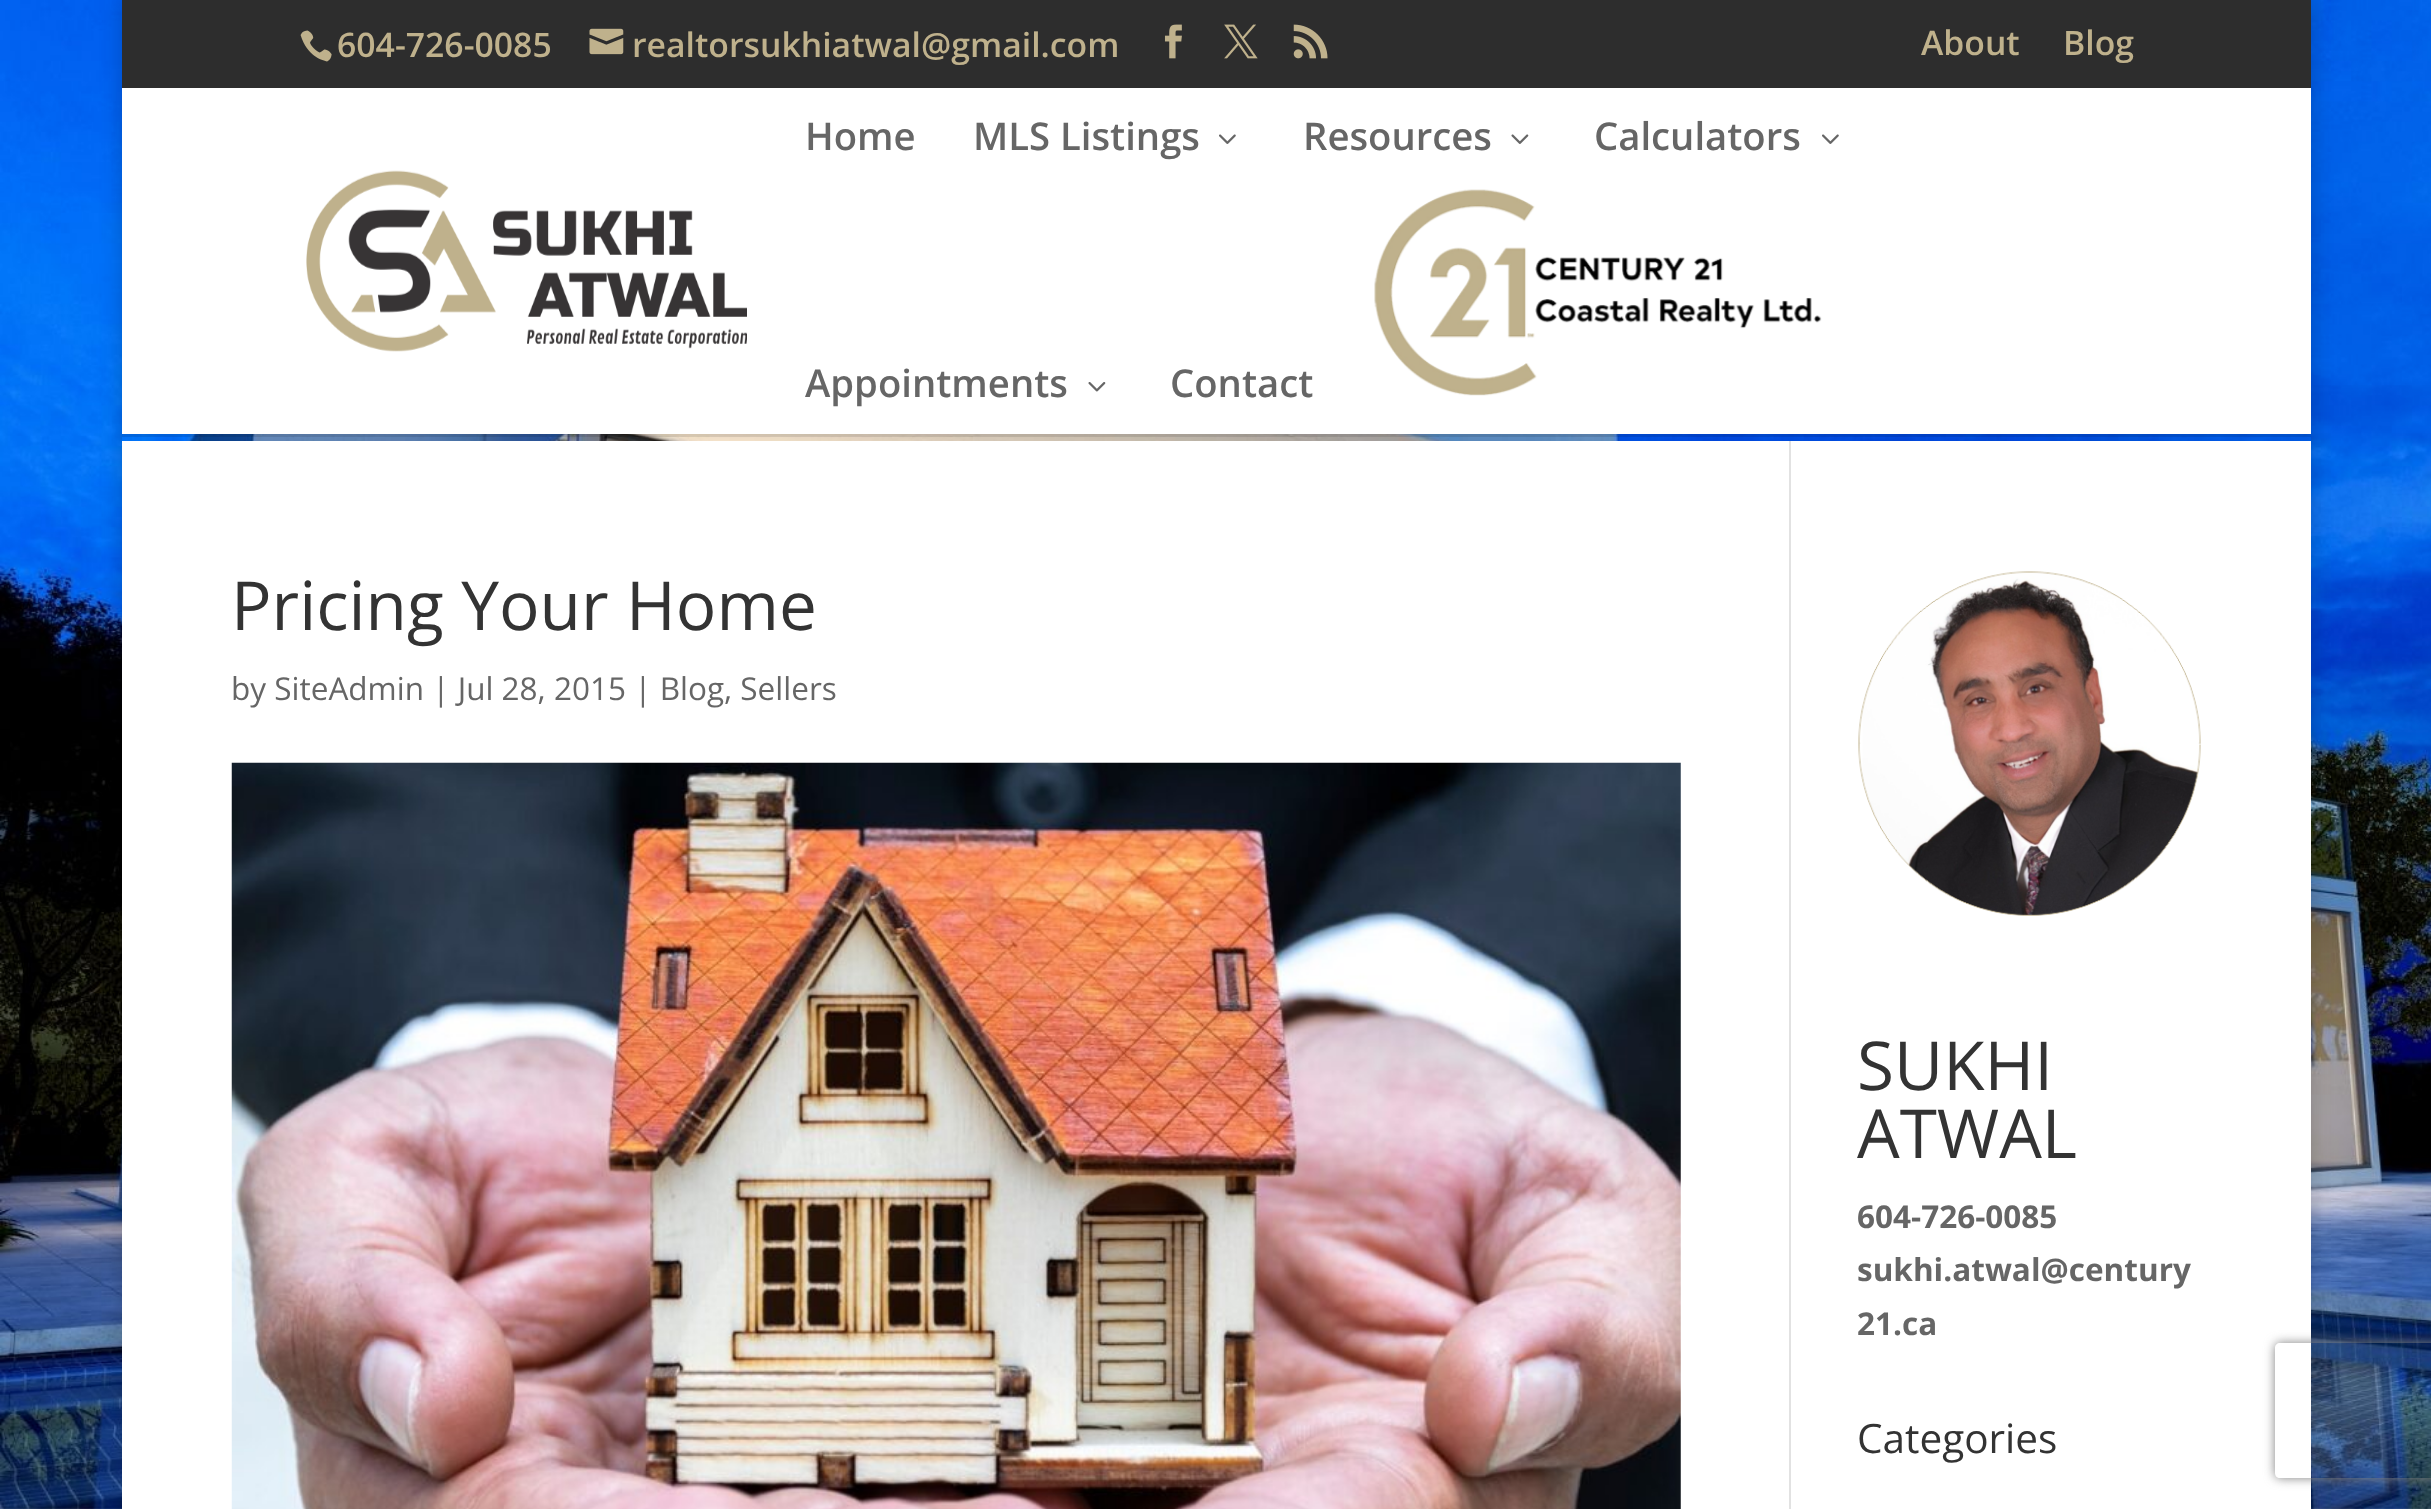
<svg xmlns="http://www.w3.org/2000/svg" width="2431" height="1509" viewBox="0 0 2431 1509">
  <style>
    .t1 { font: 600 33.75px Open Sans; fill: #bfb18c; }
    .t2 { font: 600 38.25px Open Sans; fill: #666; }
    .t3 { font: 67.5px Open Sans; fill: #333; }
    .t4 { font: 31.5px Open Sans; fill: #666; }
    .t5 { font: bold 31.5px Open Sans; fill: #666; }
    .t6 { font: 40.5px Open Sans; fill: #333; }
  </style>
  <defs>
    <clipPath id="clip1"><path d="M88 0H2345V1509H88ZM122 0H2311V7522H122Z" clip-rule="evenodd"/></clipPath>
    <clipPath id="clip2"><path d="M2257 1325H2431V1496H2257ZM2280 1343H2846C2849 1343 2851 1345 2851 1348V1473C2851 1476 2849 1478 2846 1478H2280C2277 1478 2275 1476 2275 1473V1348C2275 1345 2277 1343 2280 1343Z" clip-rule="evenodd"/></clipPath>
  </defs>
  <rect width="100%" height="100%" fill="#fff"/>
  <image x="0" y="0" width="2431" height="1509" href="images/1.png"/>
  <g clip-path="url(#clip1)">
    <rect x="122" y="0" width="2189" height="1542" fill="#00000033" filter="blur(11px)"/>
  </g>
  <rect x="122" y="0" width="2189" height="88" fill="#2d2d2d"/>
  <image x="300" y="30" width="32" height="32" href="images/2.png"/>
  <text x="337" y="57" class="t1">604-726-0085</text>
  <image x="589" y="28" width="35" height="27" href="images/3.png"/>
  <text x="632" y="57" class="t1">realtorsukhiatwal@gmail.com</text>
  <image x="1164" y="24" width="18" height="35" href="images/4.png"/>
  <image x="1224" y="24" width="34" height="35" href="images/5.png"/>
  <image x="1293" y="24" width="35" height="35" href="images/6.png"/>
  <text x="1921" y="55" class="t1">About</text>
  <text x="2063" y="55" class="t1">Blog</text>
  <path d="M122 434V437H2311V90V434Z" fill="#0000001a"/>
  <rect x="122" y="88" width="2189" height="346" fill="#fff"/>
  <image x="306" y="170" width="441" height="182" href="images/7.png"/>
  <text x="805" y="150" class="t2">Home</text>
  <text x="973" y="150" class="t2">MLS Listings</text>
  <image x="1219" y="134" width="17" height="10" href="images/8.png"/>
  <text x="1303" y="150" class="t2">Resources</text>
  <image x="1511" y="134" width="18" height="10" href="images/9.png"/>
  <text x="1594" y="150" class="t2">Calculators</text>
  <image x="1822" y="134" width="17" height="10" href="images/8.png"/>
  <text x="805" y="397" class="t2">Appointments</text>
  <image x="1088" y="382" width="18" height="10" href="images/10.png"/>
  <text x="1170" y="397" class="t2">Contact</text>
  <image x="1374" y="189" width="448" height="207" href="images/11.png"/>
  <rect x="122" y="441" width="2189" height="1068" fill="#fff"/>
  <rect x="1789" y="441" width="2" height="1068" fill="#e2e2e2"/>
  <text x="231" y="630" class="t3">Pricing Your Home</text>
  <text x="231" y="700" class="t4">by SiteAdmin | Jul 28, 2015 | Blog, Sellers</text>
  <image x="231" y="762" width="1450" height="747" href="images/12.png"/>
  <image x="1858" y="571" width="343" height="345" href="images/13.png"/>
  <text x="1857" y="1090" class="t3">SUKHI</text>
  <text x="1857" y="1158" class="t3">ATWAL</text>
  <text x="1857" y="1228" class="t5">604-726-0085</text>
  <text x="1857" y="1281" class="t5">sukhi.atwal@century</text>
  <text x="1857" y="1335" class="t5">21.ca</text>
  <text x="1857" y="1453" class="t6">Categories</text>
  <g clip-path="url(#clip2)">
    <rect x="2275" y="1343" width="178" height="135" rx="5" fill="#808080" filter="blur(5.5px)"/>
  </g>
</svg>
